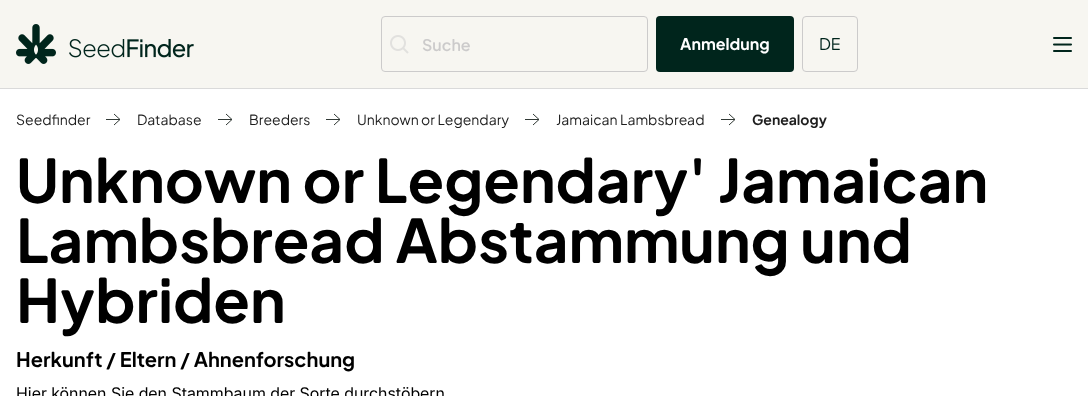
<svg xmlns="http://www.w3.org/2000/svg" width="1088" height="396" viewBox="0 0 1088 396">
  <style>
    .t1 { font: 600 16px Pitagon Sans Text; fill: #cccbcb; }
    .t2 { font: bold 16px Pitagon Sans Text; fill: #fff; }
    .t3 { font: 16px Pitagon Sans Text; fill: #00251c; }
    .t4 { font: 14px Pitagon Sans Text; fill: #1e1e1e; }
    .t5 { font: bold 14px Pitagon Sans Text; fill: #1e1e1e; }
    .t6 { font: bold 60px Pitagon Sans Text; fill: #000; }
    .t7 { font: bold 20px Pitagon Sans Text; fill: #000; }
    .t8 { font: 16px Inter; fill: #000; }
  </style>
  <rect width="100%" height="100%" fill="#fff"/>
  <rect x="0" y="0" width="1088" height="88" fill="#f7f6f1"/>
  <rect x="0" y="88" width="1088" height="1" fill="#dadada"/>
  <image x="16" y="24" width="178" height="40" href="images/1.png"/>
  <rect x="381.5" y="16.5" width="266" height="55" rx="3.5" fill="none" stroke="#cccbcb"/>
  <image x="390" y="35" width="19" height="19" href="images/2.png"/>
  <text x="422" y="51" class="t1">Suche</text>
  <rect x="656" y="16" width="138" height="56" rx="4" fill="#00251c"/>
  <text x="680" y="50" class="t2">Anmeldung</text>
  <rect x="802.5" y="16.5" width="55" height="55" rx="3.5" fill="none" stroke="#cccbcb"/>
  <text x="819" y="50" class="t3">DE</text>
  <image x="1053" y="37" width="19" height="15" href="images/3.png"/>
  <text x="16" y="125" class="t4">Seedfinder</text>
  <path d="M114 125L120 119.5M120 119.5L114 114M120 119.5H106" fill="none" stroke="#313935"/>
  <text x="137" y="125" class="t4">Database</text>
  <path d="M226 125L232 119.5M232 119.5L226 114M232 119.5H218" fill="none" stroke="#313935"/>
  <text x="249" y="125" class="t4">Breeders</text>
  <path d="M334 125L340 119.5M340 119.5L334 114M340 119.5H326" fill="none" stroke="#313935"/>
  <text x="357" y="125" class="t4">Unknown or Legendary</text>
  <path d="M533 125L539 119.5M539 119.5L533 114M539 119.5H525" fill="none" stroke="#313935"/>
  <text x="556" y="125" class="t4">Jamaican Lambsbread</text>
  <path d="M729 125L735 119.5M735 119.5L729 114M735 119.5H721" fill="none" stroke="#313935"/>
  <text x="752" y="125" class="t5">Genealogy</text>
  <text x="16" y="203" class="t6">Unknown or Legendary' Jamaican</text>
  <text x="16" y="263" class="t6">Lambsbread Abstammung und</text>
  <text x="16" y="323" class="t6">Hybriden</text>
  <text x="16" y="367" class="t7">Herkunft / Eltern / Ahnenforschung</text>
  <text x="16" y="399" class="t8">Hier können Sie den Stammbaum der Sorte durchstöbern</text>
</svg>
